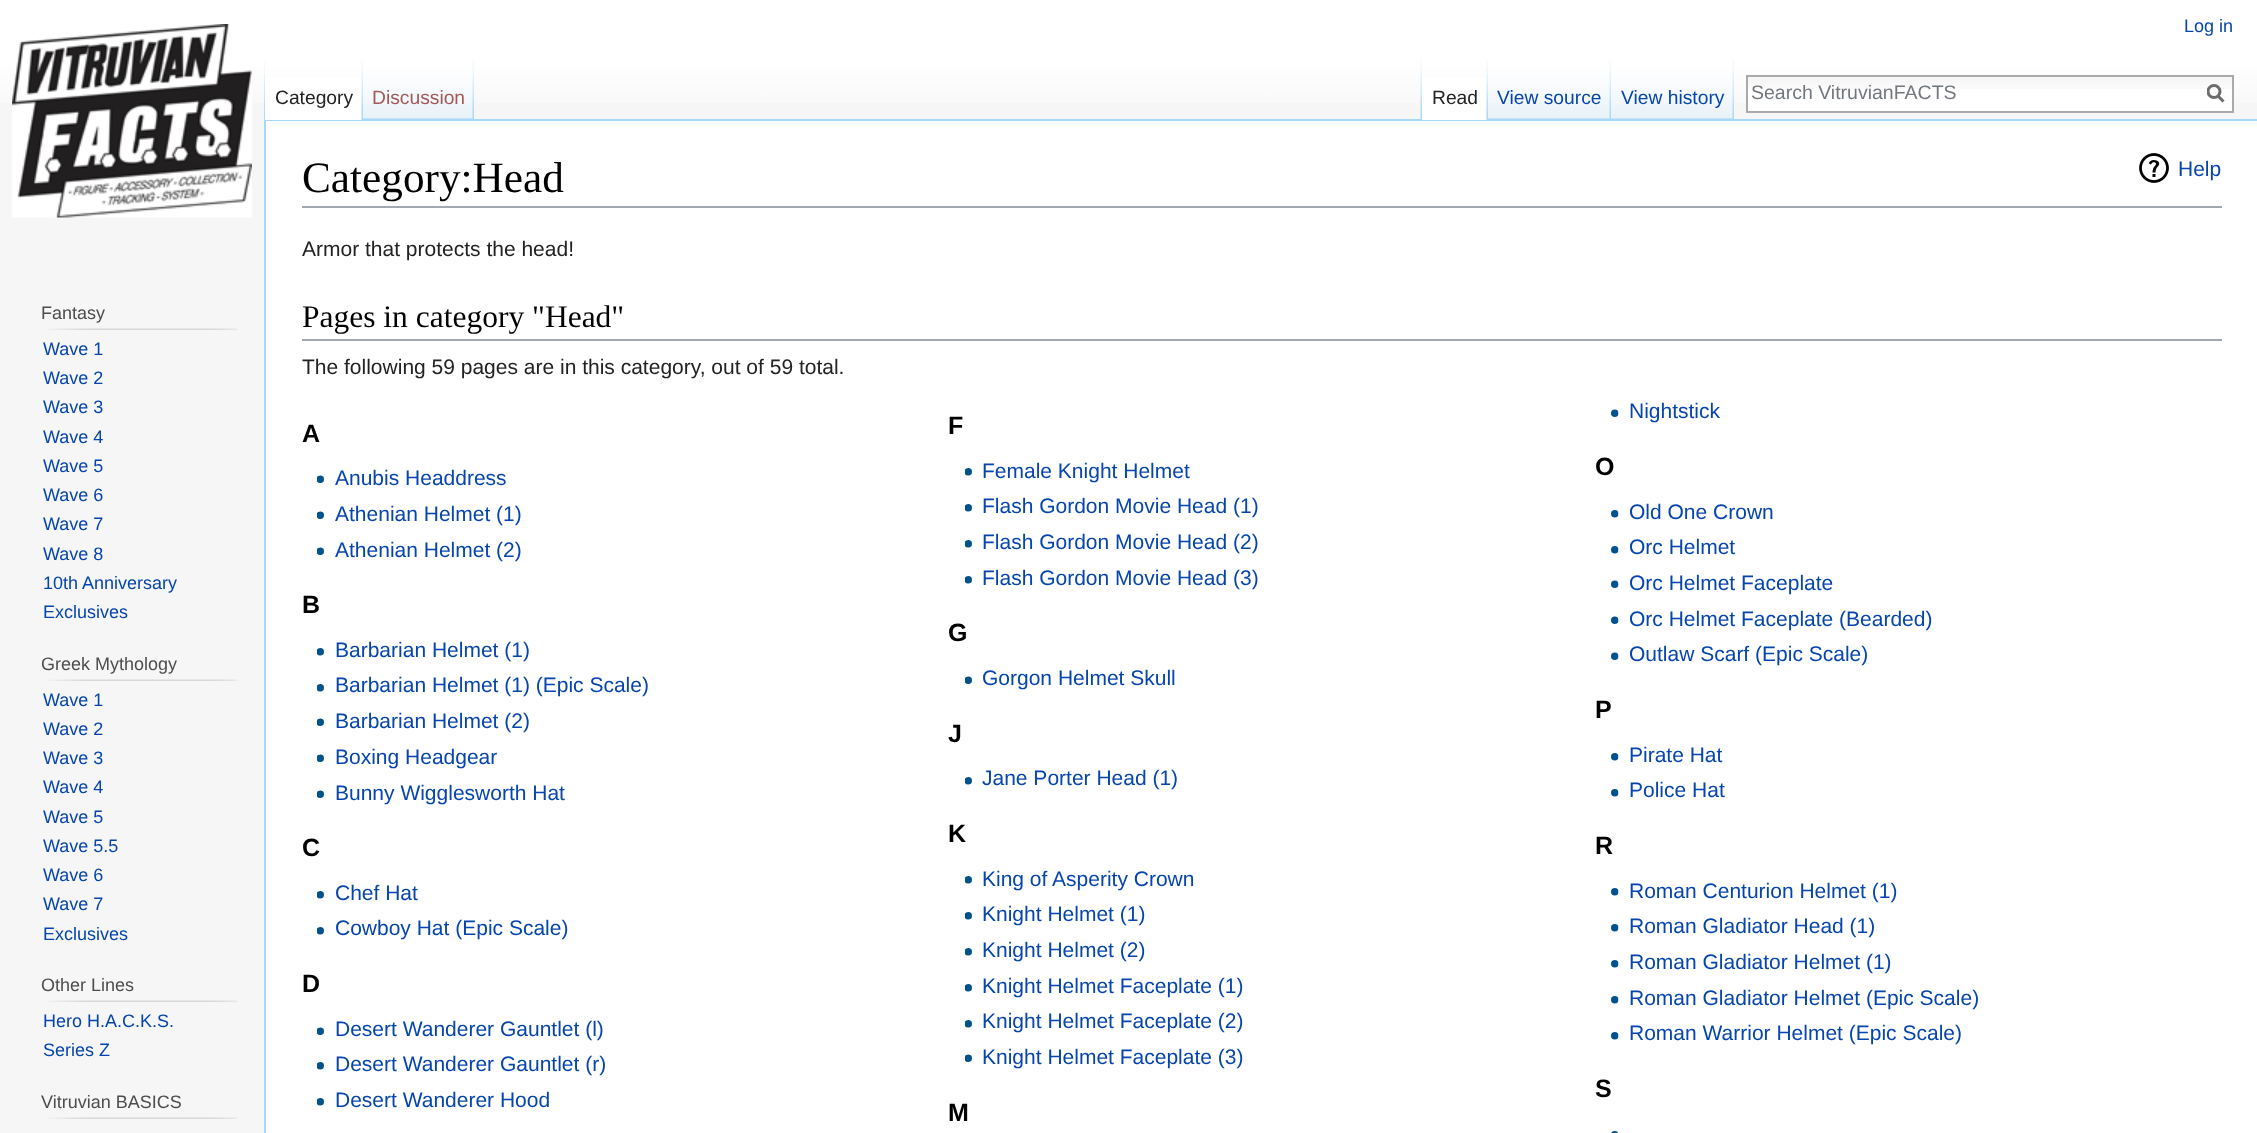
<svg xmlns="http://www.w3.org/2000/svg" width="2257" height="1133" viewBox="0 0 2257 1133">
  <style>
    .t1 { font: 18px Liberation Sans; fill: #0645ad; }
    .t2 { font: 19.25px Liberation Sans; fill: #222; }
    .t3 { font: 19.25px Liberation Sans; fill: #a55858; }
    .t4 { font: 19.25px Liberation Sans; fill: #0645ad; }
    .t5 { font: 19.5px Liberation Sans; fill: #72777d; }
    .t6 { font: 18px Liberation Sans; fill: #4d4d4d; }
    .t7 { font: 43.25px Liberation Serif; fill: #000; }
    .t8 { font: 21px Liberation Sans; fill: #0645ad; }
    .t9 { font: 21px Liberation Sans; fill: #222; }
    .t10 { font: 31.5px Liberation Serif; fill: #000; }
    .t11 { font: bold 25px Liberation Sans; fill: #000; }
  </style>
  <defs>
    <linearGradient id="g1" gradientUnits="userSpaceOnUse" x1="1129" y1="0" x2="1129" y2="120"><stop offset="0.5" stop-color="#fff"/><stop offset="1" stop-color="#f6f6f6"/></linearGradient>
    <clipPath id="clip1"><rect x="2207" y="84" width="18" height="20"/></clipPath>
  </defs>
  <rect width="100%" height="100%" fill="#f6f6f6"/>
  <rect x="0" y="0" width="2257" height="103" fill="url(#g1)"/>
  <text x="2184" y="32" class="t1">Log in</text>
  <image x="264" y="60" width="1" height="59" href="images/1.png"/>
  <rect x="264" y="119" width="1993" height="2" fill="#a7d7f9"/>
  <rect x="264" y="119" width="2" height="1014" fill="#a7d7f9"/>
  <rect x="265" y="77" width="97" height="43" fill="#fff"/>
  <image x="361" y="60" width="2" height="60" href="images/2.png"/>
  <text x="275" y="104" class="t2">Category</text>
  <image x="363" y="60" width="111" height="60" href="images/3.png"/>
  <image x="472" y="60" width="2" height="59" href="images/4.png"/>
  <text x="372" y="104" class="t3">Discussion</text>
  <image x="1420" y="60" width="2" height="59" href="images/5.png"/>
  <rect x="1422" y="77" width="65" height="43" fill="#fff"/>
  <image x="1486" y="60" width="2" height="60" href="images/2.png"/>
  <text x="1432" y="104" class="t2">Read</text>
  <image x="1488" y="60" width="123" height="60" href="images/6.png"/>
  <image x="1609" y="60" width="2" height="59" href="images/4.png"/>
  <text x="1497" y="104" class="t4">View source</text>
  <image x="1611" y="60" width="123" height="60" href="images/6.png"/>
  <image x="1732" y="60" width="2" height="59" href="images/4.png"/>
  <text x="1621" y="104" class="t4">View history</text>
  <rect x="1748" y="89" width="484" height="22" fill="#fff"/>
  <image x="1748" y="77" width="484" height="12" href="images/7.png"/>
  <rect x="1747" y="76" width="486" height="36" fill="none" stroke="#aaa" stroke-width="2"/>
  <text x="1751" y="99" class="t5">Search VitruvianFACTS</text>
  <path d="M2223.5 101.5L2217.5 95.5" fill="none" stroke="#6c6c6c" stroke-width="3"/>
  <g clip-path="url(#clip1)">
    <circle cx="2214" cy="91.5" r="6" fill="none" stroke="#6c6c6c" stroke-width="3"/>
  </g>
  <image x="12" y="24" width="240" height="194" href="images/8.png"/>
  <text x="41" y="319" class="t6">Fantasy</text>
  <image x="47" y="328" width="190" height="2" href="images/9.png"/>
  <text x="43" y="355" class="t1">Wave 1</text>
  <text x="43" y="384" class="t1">Wave 2</text>
  <text x="43" y="413" class="t1">Wave 3</text>
  <text x="43" y="443" class="t1">Wave 4</text>
  <text x="43" y="472" class="t1">Wave 5</text>
  <text x="43" y="501" class="t1">Wave 6</text>
  <text x="43" y="530" class="t1">Wave 7</text>
  <text x="43" y="560" class="t1">Wave 8</text>
  <text x="43" y="589" class="t1">10th Anniversary</text>
  <text x="43" y="618" class="t1">Exclusives</text>
  <text x="41" y="670" class="t6">Greek Mythology</text>
  <image x="47" y="679" width="190" height="2" href="images/9.png"/>
  <text x="43" y="706" class="t1">Wave 1</text>
  <text x="43" y="735" class="t1">Wave 2</text>
  <text x="43" y="764" class="t1">Wave 3</text>
  <text x="43" y="793" class="t1">Wave 4</text>
  <text x="43" y="823" class="t1">Wave 5</text>
  <text x="43" y="852" class="t1">Wave 5.5</text>
  <text x="43" y="881" class="t1">Wave 6</text>
  <text x="43" y="910" class="t1">Wave 7</text>
  <text x="43" y="940" class="t1">Exclusives</text>
  <text x="41" y="991" class="t6">Other Lines</text>
  <image x="47" y="1000" width="190" height="2" href="images/9.png"/>
  <text x="43" y="1027" class="t1">Hero H.A.C.K.S.</text>
  <text x="43" y="1056" class="t1">Series Z</text>
  <text x="41" y="1108" class="t6">Vitruvian BASICS</text>
  <image x="47" y="1117" width="190" height="2" href="images/9.png"/>
  <rect x="266" y="121" width="1991" height="1012" fill="#fff"/>
  <rect x="302" y="206" width="1920" height="2" fill="#a2a9b1"/>
  <text x="302" y="192" class="t7">Category:Head</text>
  <image x="2139" y="153" width="30" height="30" href="images/10.png"/>
  <text x="2178" y="176" class="t8">Help</text>
  <text x="302" y="256" class="t9">Armor that protects the head!</text>
  <rect x="302" y="339" width="1920" height="2" fill="#a2a9b1"/>
  <text x="302" y="327" class="t10">Pages in category "Head"</text>
  <text x="302" y="374" class="t9">The following 59 pages are in this category, out of 59 total.</text>
  <image x="1611" y="409" width="8" height="8" href="images/11.png"/>
  <text x="1629" y="418" class="t8">Nightstick</text>
  <text x="302" y="442" class="t11">A</text>
  <image x="317" y="475" width="7" height="8" href="images/12.png"/>
  <text x="335" y="485" class="t8">Anubis Headdress</text>
  <image x="317" y="511" width="7" height="8" href="images/12.png"/>
  <text x="335" y="521" class="t8">Athenian Helmet (1)</text>
  <image x="317" y="547" width="7" height="8" href="images/12.png"/>
  <text x="335" y="557" class="t8">Athenian Helmet (2)</text>
  <text x="948" y="434" class="t11">F</text>
  <image x="965" y="468" width="7" height="8" href="images/13.png"/>
  <text x="982" y="478" class="t8">Female Knight Helmet</text>
  <image x="965" y="504" width="7" height="8" href="images/14.png"/>
  <text x="982" y="513" class="t8">Flash Gordon Movie Head (1)</text>
  <image x="965" y="540" width="7" height="8" href="images/13.png"/>
  <text x="982" y="549" class="t8">Flash Gordon Movie Head (2)</text>
  <image x="965" y="576" width="7" height="8" href="images/13.png"/>
  <text x="982" y="585" class="t8">Flash Gordon Movie Head (3)</text>
  <text x="1595" y="475" class="t11">O</text>
  <image x="1611" y="510" width="8" height="8" href="images/15.png"/>
  <text x="1629" y="519" class="t8">Old One Crown</text>
  <image x="1611" y="546" width="8" height="8" href="images/15.png"/>
  <text x="1629" y="554" class="t8">Orc Helmet</text>
  <image x="1611" y="580" width="8" height="8" href="images/11.png"/>
  <text x="1629" y="590" class="t8">Orc Helmet Faceplate</text>
  <image x="1611" y="616" width="8" height="8" href="images/11.png"/>
  <text x="1629" y="626" class="t8">Orc Helmet Faceplate (Bearded)</text>
  <image x="1611" y="652" width="8" height="8" href="images/11.png"/>
  <text x="1629" y="661" class="t8">Outlaw Scarf (Epic Scale)</text>
  <text x="302" y="613" class="t11">B</text>
  <image x="317" y="648" width="7" height="8" href="images/13.png"/>
  <text x="335" y="657" class="t8">Barbarian Helmet (1)</text>
  <image x="317" y="684" width="7" height="8" href="images/13.png"/>
  <text x="335" y="692" class="t8">Barbarian Helmet (1) (Epic Scale)</text>
  <image x="317" y="718" width="7" height="8" href="images/12.png"/>
  <text x="335" y="728" class="t8">Barbarian Helmet (2)</text>
  <image x="317" y="754" width="7" height="8" href="images/12.png"/>
  <text x="335" y="764" class="t8">Boxing Headgear</text>
  <image x="317" y="790" width="7" height="8" href="images/12.png"/>
  <text x="335" y="800" class="t8">Bunny Wigglesworth Hat</text>
  <text x="948" y="641" class="t11">G</text>
  <image x="965" y="676" width="7" height="8" href="images/12.png"/>
  <text x="982" y="685" class="t8">Gorgon Helmet Skull</text>
  <text x="948" y="742" class="t11">J</text>
  <image x="965" y="777" width="7" height="8" href="images/13.png"/>
  <text x="982" y="785" class="t8">Jane Porter Head (1)</text>
  <text x="1595" y="718" class="t11">P</text>
  <image x="1611" y="753" width="8" height="8" href="images/15.png"/>
  <text x="1629" y="762" class="t8">Pirate Hat</text>
  <image x="1611" y="789" width="8" height="8" href="images/15.png"/>
  <text x="1629" y="797" class="t8">Police Hat</text>
  <text x="302" y="856" class="t11">C</text>
  <image x="317" y="891" width="7" height="8" href="images/13.png"/>
  <text x="335" y="900" class="t8">Chef Hat</text>
  <image x="317" y="927" width="7" height="8" href="images/13.png"/>
  <text x="335" y="935" class="t8">Cowboy Hat (Epic Scale)</text>
  <text x="948" y="842" class="t11">K</text>
  <image x="965" y="876" width="7" height="8" href="images/13.png"/>
  <text x="982" y="886" class="t8">King of Asperity Crown</text>
  <image x="965" y="912" width="7" height="8" href="images/13.png"/>
  <text x="982" y="921" class="t8">Knight Helmet (1)</text>
  <image x="965" y="948" width="7" height="8" href="images/13.png"/>
  <text x="982" y="957" class="t8">Knight Helmet (2)</text>
  <image x="965" y="984" width="7" height="8" href="images/13.png"/>
  <text x="982" y="993" class="t8">Knight Helmet Faceplate (1)</text>
  <image x="965" y="1020" width="7" height="8" href="images/16.png"/>
  <text x="982" y="1028" class="t8">Knight Helmet Faceplate (2)</text>
  <image x="965" y="1054" width="7" height="8" href="images/12.png"/>
  <text x="982" y="1064" class="t8">Knight Helmet Faceplate (3)</text>
  <text x="1595" y="854" class="t11">R</text>
  <image x="1611" y="888" width="8" height="8" href="images/15.png"/>
  <text x="1629" y="898" class="t8">Roman Centurion Helmet (1)</text>
  <image x="1611" y="924" width="8" height="8" href="images/15.png"/>
  <text x="1629" y="933" class="t8">Roman Gladiator Head (1)</text>
  <image x="1611" y="960" width="8" height="8" href="images/15.png"/>
  <text x="1629" y="969" class="t8">Roman Gladiator Helmet (1)</text>
  <image x="1611" y="996" width="8" height="8" href="images/15.png"/>
  <text x="1629" y="1005" class="t8">Roman Gladiator Helmet (Epic Scale)</text>
  <image x="1611" y="1032" width="8" height="8" href="images/15.png"/>
  <text x="1629" y="1040" class="t8">Roman Warrior Helmet (Epic Scale)</text>
  <text x="302" y="992" class="t11">D</text>
  <image x="317" y="1027" width="7" height="8" href="images/12.png"/>
  <text x="335" y="1036" class="t8">Desert Wanderer Gauntlet (l)</text>
  <image x="317" y="1062" width="7" height="8" href="images/13.png"/>
  <text x="335" y="1071" class="t8">Desert Wanderer Gauntlet (r)</text>
  <image x="317" y="1098" width="7" height="8" href="images/13.png"/>
  <text x="335" y="1107" class="t8">Desert Wanderer Hood</text>
  <text x="1595" y="1097" class="t11">S</text>
  <image x="1611" y="1131" width="8" height="2" href="images/17.png"/>
  <text x="948" y="1121" class="t11">M</text>
</svg>
